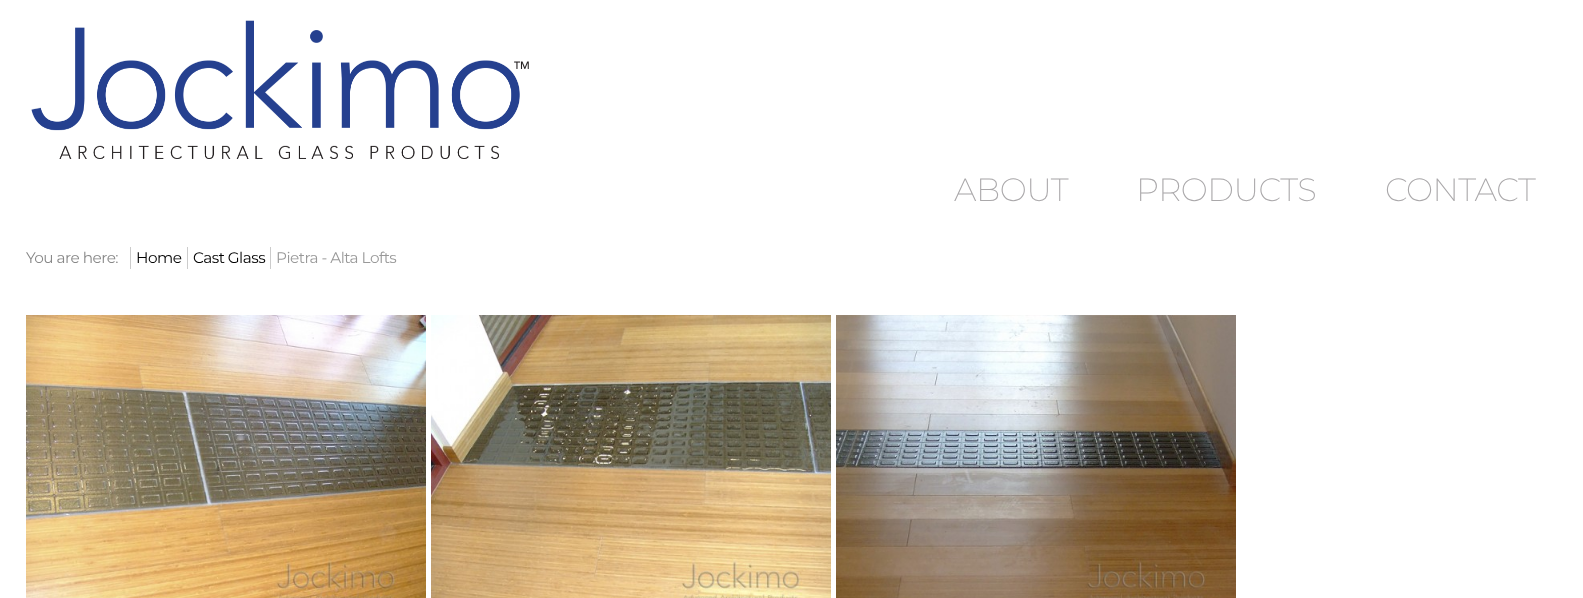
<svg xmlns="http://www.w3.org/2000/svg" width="1583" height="598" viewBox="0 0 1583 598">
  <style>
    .t1 { font: 200 32.25px Montserrat; letter-spacing: -0.5px; fill: #aaa8aa; }
    .t2 { font: 15.25px Montserrat; letter-spacing: -0.5px; fill: #888; }
    .t3 { font: 15.25px Montserrat; letter-spacing: -0.5px; fill: #000; }
    .t4 { font: 15.25px Montserrat; letter-spacing: -0.5px; fill: #999; }
  </style>
  <rect width="100%" height="100%" fill="#fff"/>
  <image x="31" y="20" width="498" height="139" href="images/1.png"/>
  <text x="954" y="201" class="t1">ABOUT</text>
  <text x="1136" y="201" class="t1">PRODUCTS</text>
  <text x="1385" y="201" class="t1">CONTACT</text>
  <rect x="130" y="247" width="1" height="22" fill="#ccc"/>
  <text x="26" y="263" class="t2">You are here:</text>
  <rect x="187" y="247" width="1" height="22" fill="#ccc"/>
  <text x="136" y="263" class="t3">Home</text>
  <rect x="270" y="247" width="1" height="22" fill="#ccc"/>
  <text x="193" y="263" class="t3">Cast Glass</text>
  <text x="276" y="263" class="t4">Pietra - Alta Lofts</text>
  <image x="26" y="315" width="400" height="283" href="images/2.png"/>
  <image x="431" y="315" width="400" height="283" href="images/3.png"/>
  <image x="836" y="315" width="400" height="283" href="images/4.png"/>
</svg>
